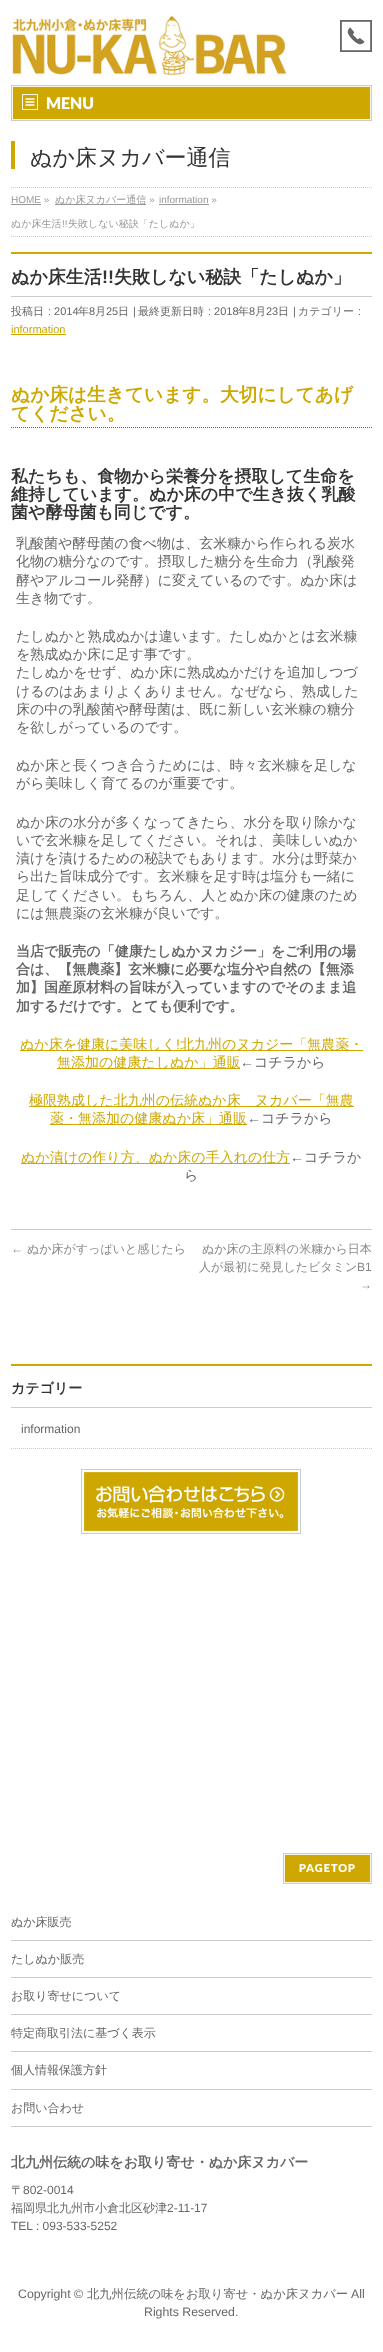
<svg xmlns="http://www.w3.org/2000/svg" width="383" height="2352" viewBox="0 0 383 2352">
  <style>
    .t1 { font: 900 16px Lato; fill: #fff; }
    .t2 { font: 500 22px WenQuanYi Zen Hei; fill: #333; }
    .t3 { font: 10px Liberation Sans; fill: #999; }
    .t4 { font: 500 10px WenQuanYi Zen Hei; fill: #999; }
    .t5 { font: bold 18px WenQuanYi Zen Hei; fill: #333; }
    .t6 { font: bold 18px Liberation Sans; fill: #333; }
    .t7 { font: 500 11px WenQuanYi Zen Hei; fill: #666; }
    .t8 { font: 11px Liberation Sans; fill: #666; }
    .t9 { font: 11px Liberation Sans; fill: #cea800; }
    .t10 { font: bold 18.7px WenQuanYi Zen Hei; fill: #cea800; }
    .t11 { font: bold 17px WenQuanYi Zen Hei; fill: #333; }
    .t12 { font: 500 14px WenQuanYi Zen Hei; fill: #666; }
    .t13 { font: bold 14px WenQuanYi Zen Hei; fill: #666; }
    .t14 { font: 500 14px WenQuanYi Zen Hei; fill: #cea800; }
    .t15 { font: 14px Liberation Sans; fill: #cea800; }
    .t16 { font: 14px Liberation Sans; fill: #666; }
    .t17 { font: 12px Liberation Sans; fill: #888; }
    .t18 { font: 500 12px WenQuanYi Zen Hei; fill: #888; }
    .t19 { font: bold 14px WenQuanYi Zen Hei; fill: #333; }
    .t20 { font: 12px Liberation Sans; fill: #666; }
    .t21 { font: 900 11px Lato; letter-spacing: 1px; fill: #fff; }
    .t22 { font: 500 12px WenQuanYi Zen Hei; fill: #666; }
    .t23 { font: 12.3px Liberation Sans; fill: #666; }
    .t24 { font: 500 12.3px WenQuanYi Zen Hei; fill: #666; }
  </style>
  <rect width="100%" height="100%" fill="#fff"/>
  <image x="12" y="15" width="274" height="60" href="images/1.png"/>
  <image x="340" y="20" width="32" height="32" href="images/2.png"/>
  <rect x="12.5" y="86.5" width="358" height="33" fill="#cea800" stroke="#faf6e6"/>
  <rect x="11.5" y="85.5" width="360" height="35" fill="none" stroke="#ccc"/>
  <image x="22" y="94" width="16" height="16" href="images/3.png"/>
  <text x="46" y="109" class="t1">MENU</text>
  <rect x="11" y="141" width="4" height="28" fill="#cea800"/>
  <text x="30" y="165" class="t2">ぬか床ヌカバー通信</text>
  <path d="M11 187.5H372" fill="none" stroke="#ccc" stroke-dasharray="1 1"/>
  <path d="M11 236.5H372" fill="none" stroke="#ccc" stroke-dasharray="1 1"/>
  <text x="11" y="203" class="t3">HOME »</text>
  <rect x="11" y="204" width="30" height="1" fill="#999"/>
  <rect x="55" y="204" width="91" height="1" fill="#999"/>
  <text x="55" y="203" class="t4">ぬか床ヌカバー通信</text>
  <text x="149" y="203" class="t3">»</text>
  <text x="159" y="203" class="t3">information »</text>
  <rect x="159" y="204" width="50" height="1" fill="#999"/>
  <text x="11" y="227" class="t4">ぬか床生活</text>
  <text x="62" y="227" class="t3">!!</text>
  <text x="68" y="227" class="t4">失敗しない秘訣「たしぬか」</text>
  <rect x="11" y="252" width="361" height="2" fill="#cea800"/>
  <rect x="11" y="296" width="361" height="1" fill="#ccc"/>
  <text x="11" y="283" class="t5">ぬか床生活</text>
  <text x="102" y="283" class="t6">!!</text>
  <text x="114" y="283" class="t5">失敗しない秘訣「たしぬか」</text>
  <text x="11" y="315" class="t7">投稿日</text>
  <text x="48" y="315" class="t8">: 2014</text>
  <text x="78" y="315" class="t7">年</text>
  <text x="89" y="315" class="t8">8</text>
  <text x="95" y="315" class="t7">月</text>
  <text x="106" y="315" class="t8">25</text>
  <text x="118" y="315" class="t7">日</text>
  <text x="133" y="315" class="t8">|</text>
  <text x="138" y="315" class="t7">最終更新日時</text>
  <text x="208" y="315" class="t8">: 2018</text>
  <text x="238" y="315" class="t7">年</text>
  <text x="249" y="315" class="t8">8</text>
  <text x="255" y="315" class="t7">月</text>
  <text x="266" y="315" class="t8">23</text>
  <text x="278" y="315" class="t7">日</text>
  <text x="293" y="315" class="t8">|</text>
  <text x="298" y="315" class="t7">カテゴリー</text>
  <text x="358" y="315" class="t8">:</text>
  <text x="11" y="333" class="t9">information</text>
  <rect x="11" y="334" width="55" height="1" fill="#cea800"/>
  <path d="M11 427.5H372" fill="none" stroke="#666" stroke-dasharray="1 1"/>
  <text x="11" y="401" class="t10">ぬか床は生きています。大切にしてあげ</text>
  <text x="11" y="420" class="t10">てください。</text>
  <text x="11" y="482" class="t11">私たちも、食物から栄養分を摂取して生命を</text>
  <text x="11" y="500" class="t11">維持しています。ぬか床の中で生き抜く乳酸</text>
  <text x="11" y="518" class="t11">菌や酵母菌も同じです。</text>
  <text x="16" y="548" class="t12">乳酸菌や酵母菌の食べ物は、玄米糠から作られる炭水</text>
  <text x="16" y="566" class="t12">化物の糖分なのです。摂取した糖分を生命力（乳酸発</text>
  <text x="16" y="585" class="t12">酵やアルコール発酵）に変えているのです。ぬか床は</text>
  <text x="16" y="603" class="t12">生き物です。</text>
  <text x="16" y="641" class="t12">たしぬかと熟成ぬかは違います。たしぬかとは玄米糠</text>
  <text x="16" y="659" class="t12">を熟成ぬか床に足す事です。</text>
  <text x="16" y="677" class="t12">たしぬかをせず、ぬか床に熟成ぬかだけを追加しつづ</text>
  <text x="16" y="696" class="t12">けるのはあまりよくありません。なぜなら、熟成した</text>
  <text x="16" y="714" class="t12">床の中の乳酸菌や酵母菌は、既に新しい玄米糠の糖分</text>
  <text x="16" y="732" class="t12">を欲しがっているのです。</text>
  <text x="16" y="770" class="t12">ぬか床と長くつき合うためには、時々玄米糠を足しな</text>
  <text x="16" y="788" class="t12">がら美味しく育てるのが重要です。</text>
  <text x="16" y="827" class="t12">ぬか床の水分が多くなってきたら、水分を取り除かな</text>
  <text x="16" y="845" class="t12">いで玄米糠を足してください。それは、美味しいぬか</text>
  <text x="16" y="863" class="t12">漬けを漬けるための秘訣でもあります。水分は野菜か</text>
  <text x="16" y="881" class="t12">ら出た旨味成分です。玄米糠を足す時は塩分も一緒に</text>
  <text x="16" y="900" class="t12">足してください。もちろん、人とぬか床の健康のため</text>
  <text x="16" y="918" class="t12">には無農薬の玄米糠が良いです。</text>
  <text x="16" y="956" class="t13">当店で販売の「健康たしぬかヌカジー」をご利用の場</text>
  <text x="16" y="974" class="t13">合は、【無農薬】玄米糠に必要な塩分や自然の【無添</text>
  <text x="16" y="992" class="t13">加】国産原材料の旨味が入っていますのでそのまま追</text>
  <text x="16" y="1011" class="t13">加するだけです。とても便利です。</text>
  <rect x="20" y="1050" width="343" height="1" fill="#cea800"/>
  <text x="20" y="1049" class="t14">ぬか床を健康に美味しく</text>
  <text x="176" y="1049" class="t15">!</text>
  <text x="180" y="1049" class="t14">北九州のヌカジー「無農薬・</text>
  <rect x="57" y="1068" width="183" height="1" fill="#cea800"/>
  <text x="57" y="1067" class="t14">無添加の健康たしぬか」通販</text>
  <text x="240" y="1067" class="t16">←</text>
  <text x="254" y="1067" class="t12">コチラから</text>
  <rect x="29" y="1106" width="325" height="1" fill="#cea800"/>
  <text x="29" y="1105" class="t14">極限熟成した北九州の伝統ぬか床　ヌカバー「無農</text>
  <rect x="50" y="1124" width="197" height="1" fill="#cea800"/>
  <text x="50" y="1123" class="t14">薬・無添加の健康ぬか床」通販</text>
  <text x="247" y="1123" class="t16">←</text>
  <text x="261" y="1123" class="t12">コチラから</text>
  <rect x="21" y="1163" width="269" height="1" fill="#cea800"/>
  <text x="21" y="1162" class="t14">ぬか漬けの作り方、ぬか床の手入れの仕方</text>
  <text x="290" y="1162" class="t16">←</text>
  <text x="304" y="1162" class="t12">コチラか</text>
  <text x="184" y="1180" class="t12">ら</text>
  <rect x="11" y="1229" width="361" height="1" fill="#ccc"/>
  <text x="11" y="1253" class="t17">←</text>
  <text x="27" y="1253" class="t18">ぬか床がすっぱいと感じたら</text>
  <text x="202" y="1253" class="t18">ぬか床の主原料の米糠から日本</text>
  <text x="199" y="1271" class="t18">人が最初に発見したビタミン</text>
  <text x="357" y="1271" class="t17">B1</text>
  <text x="360" y="1289" class="t17">→</text>
  <rect x="11" y="1364" width="361" height="2" fill="#cea800"/>
  <rect x="11" y="1407" width="361" height="1" fill="#ccc"/>
  <text x="11" y="1393" class="t19">カテゴリー</text>
  <path d="M11 1448.5H372" fill="none" stroke="#ccc" stroke-dasharray="1 1"/>
  <text x="21" y="1433" class="t20">information</text>
  <rect x="84" y="1472" width="214" height="59" fill="#cea800"/>
  <image x="81" y="1469" width="220" height="65" href="images/4.png"/>
  <rect x="284.5" y="1854.5" width="86" height="28" fill="#cea800" stroke="#faf6e6"/>
  <rect x="283.5" y="1853.5" width="88" height="30" fill="none" stroke="#ccc"/>
  <text x="299" y="1872" class="t21">PAGETOP</text>
  <rect x="11" y="1940" width="361" height="1" fill="#ccc"/>
  <text x="11" y="1926" class="t22">ぬか床販売</text>
  <rect x="11" y="1977" width="361" height="1" fill="#ccc"/>
  <text x="11" y="1963" class="t22">たしぬか販売</text>
  <rect x="11" y="2014" width="361" height="1" fill="#ccc"/>
  <text x="11" y="2000" class="t22">お取り寄せについて</text>
  <rect x="11" y="2051" width="361" height="1" fill="#ccc"/>
  <text x="11" y="2037" class="t22">特定商取引法に基づく表示</text>
  <rect x="11" y="2089" width="361" height="1" fill="#ccc"/>
  <text x="11" y="2074" class="t22">個人情報保護方針</text>
  <rect x="11" y="2126" width="361" height="1" fill="#ccc"/>
  <text x="11" y="2112" class="t22">お問い合わせ</text>
  <text x="11" y="2167" class="t13">北九州伝統の味をお取り寄せ・ぬか床ヌカバー</text>
  <text x="11" y="2194" class="t22">〒</text>
  <text x="23" y="2194" class="t20">802-0014</text>
  <text x="11" y="2212" class="t22">福岡県北九州市小倉北区砂津</text>
  <text x="167" y="2212" class="t20">2-11-17</text>
  <text x="11" y="2230" class="t20">TEL : 093-533-5252</text>
  <text x="18" y="2298" class="t23">Copyright ©</text>
  <text x="87" y="2298" class="t24">北九州伝統の味をお取り寄せ・ぬか床ヌカバー</text>
  <text x="351" y="2298" class="t23">All</text>
  <text x="144" y="2316" class="t23">Rights Reserved.</text>
</svg>
